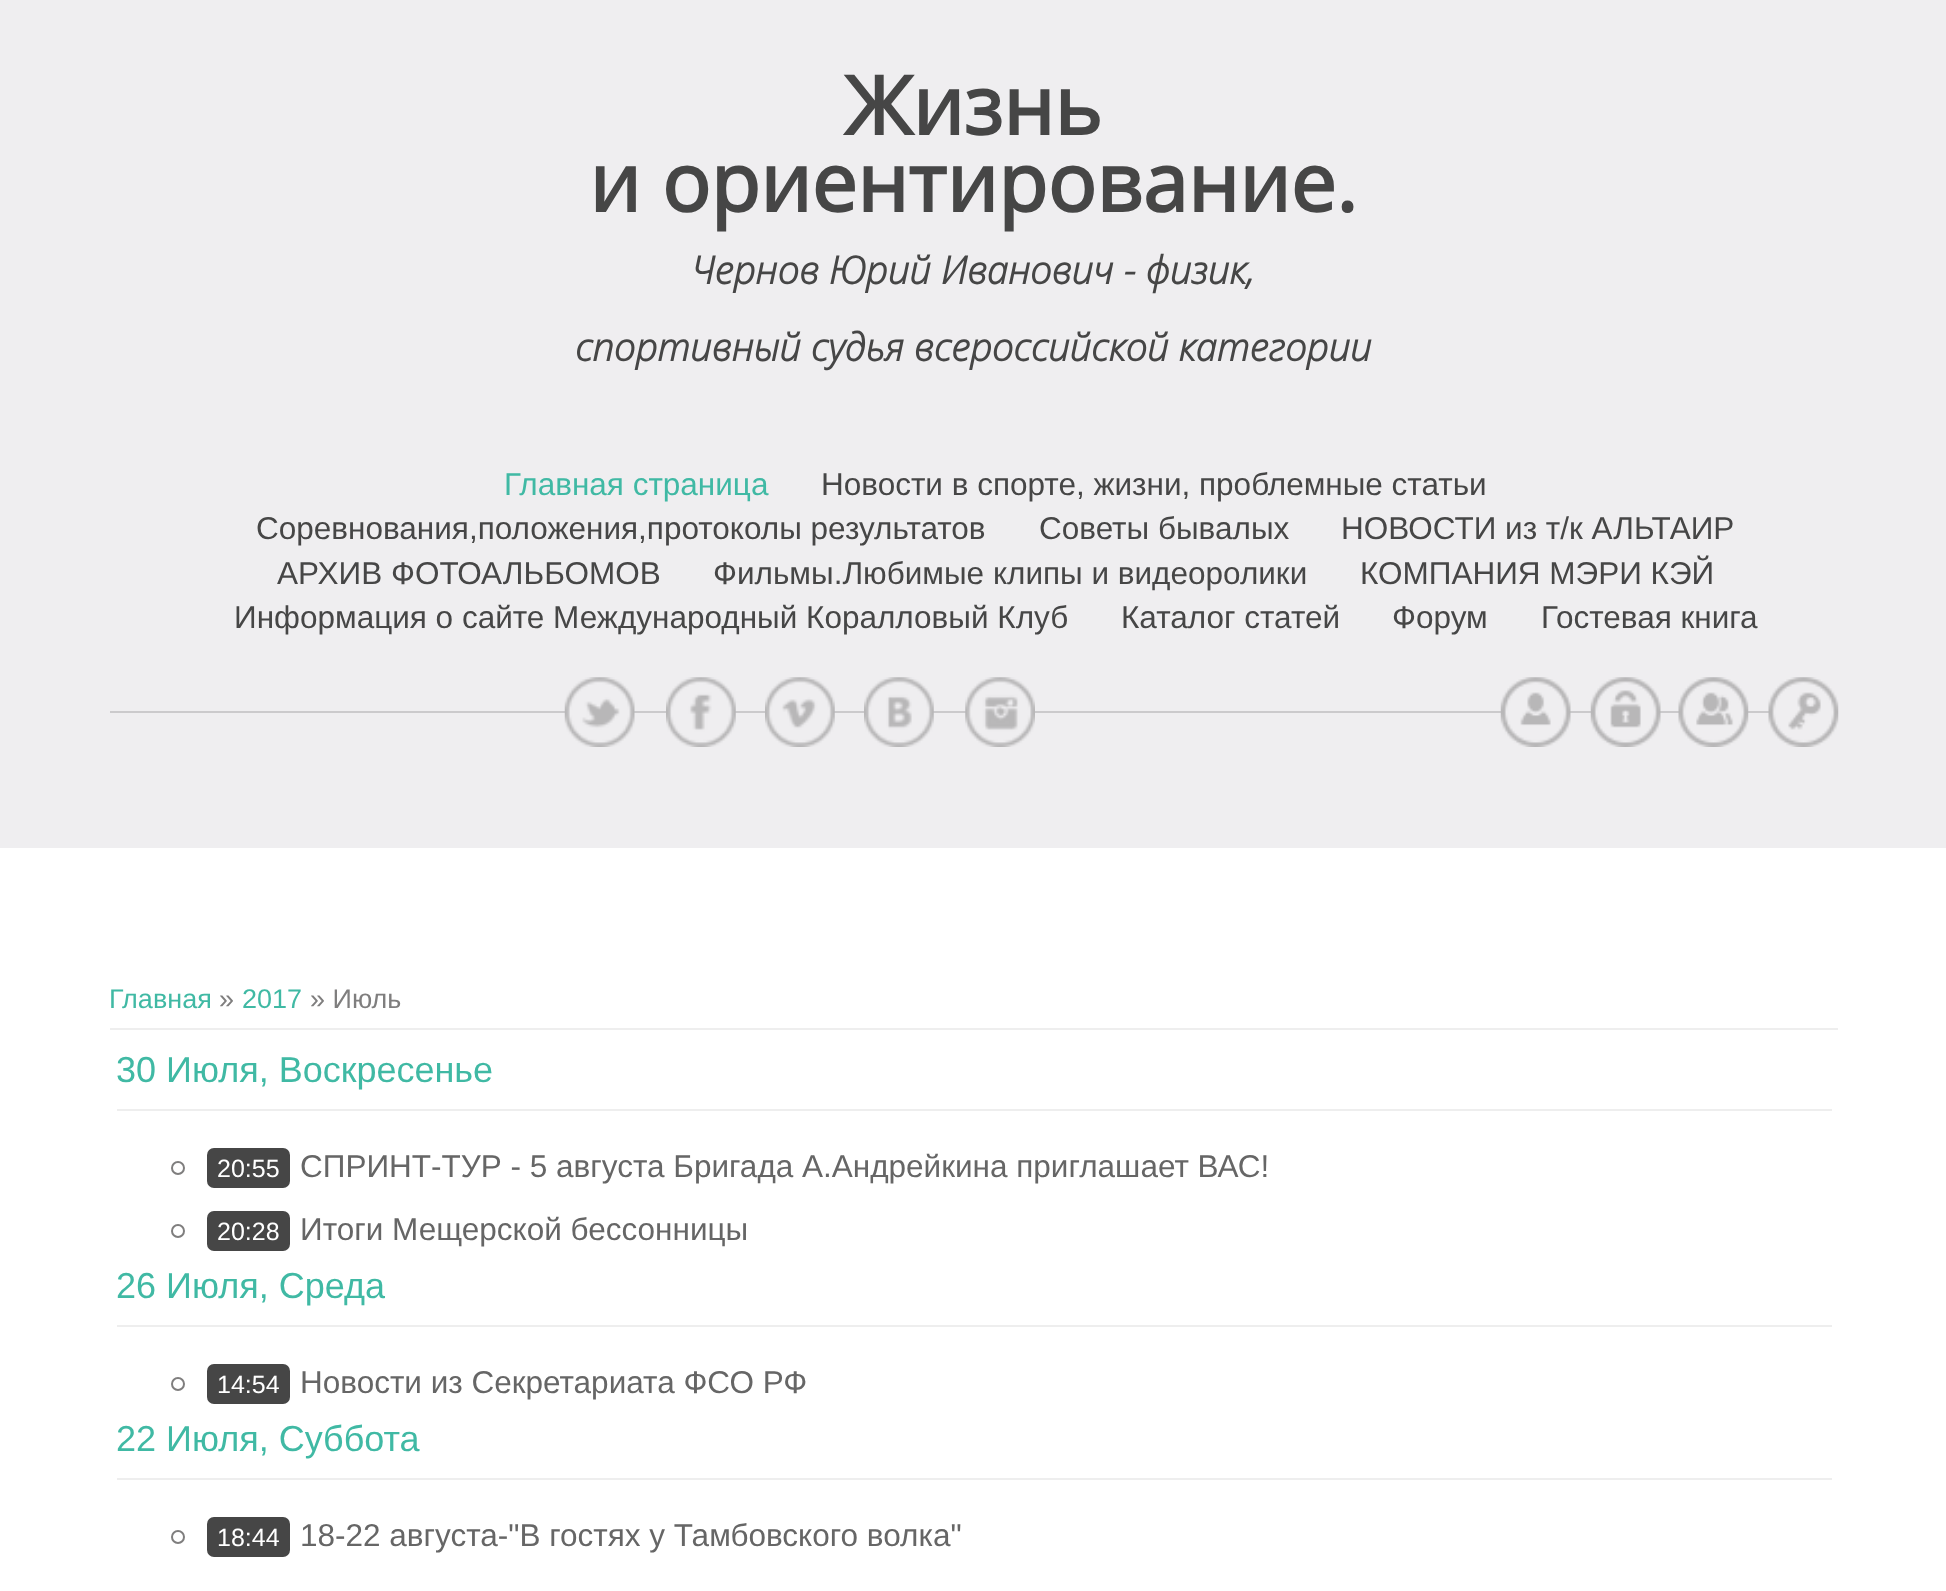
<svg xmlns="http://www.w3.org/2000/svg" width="1946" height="1591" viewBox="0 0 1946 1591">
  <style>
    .t1 { font: bold 81px Open Sans; fill: #464646; }
    .t2 { font: italic bold 38.25px Open Sans; fill: #464646; }
    .t3 { font: 31.5px Liberation Sans; fill: #40b9a4; }
    .t4 { font: 31.5px Liberation Sans; fill: #464646; }
    .t5 { font: 27px Liberation Sans; fill: #40b9a4; }
    .t6 { font: 27px Liberation Sans; fill: #7f7e7e; }
    .t7 { font: 36px Liberation Sans; fill: #40b9a4; }
    .t8 { font: 25px Liberation Sans; fill: #fff; }
    .t9 { font: 31.5px Liberation Sans; fill: #666; }
  </style>
  <rect width="100%" height="100%" fill="#fff"/>
  <rect x="0" y="0" width="1946" height="848" fill="#efeef0"/>
  <rect x="110" y="711" width="1659" height="2" fill="#cbcacc"/>
  <text x="844" y="135" class="t1">Жизнь</text>
  <text x="589" y="212" class="t1">и ориентирование.</text>
  <text x="691" y="284" class="t2">Чернов Юрий Иванович - физик,</text>
  <text x="575" y="361" class="t2">спортивный судья всероссийской категории</text>
  <text x="504" y="495" class="t3">Главная страница</text>
  <text x="821" y="495" class="t4">Новости в спорте, жизни, проблемные статьи</text>
  <text x="256" y="539" class="t4">Соревнования,положения,протоколы результатов</text>
  <text x="1039" y="539" class="t4">Советы бывалых</text>
  <text x="1341" y="539" class="t4">НОВОСТИ из т/к АЛЬТАИР</text>
  <text x="277" y="584" class="t4">АРХИВ ФОТОАЛЬБОМОВ</text>
  <text x="713" y="584" class="t4">Фильмы.Любимые клипы и видеоролики</text>
  <text x="1360" y="584" class="t4">КОМПАНИЯ МЭРИ КЭЙ</text>
  <text x="234" y="628" class="t4">Информация о сайте Международный Коралловый Клуб</text>
  <text x="1121" y="628" class="t4">Каталог статей</text>
  <text x="1392" y="628" class="t4">Форум</text>
  <text x="1541" y="628" class="t4">Гостевая книга</text>
  <image x="564" y="677" width="71" height="70" href="images/1.png"/>
  <image x="666" y="677" width="70" height="70" href="images/2.png"/>
  <image x="765" y="677" width="70" height="70" href="images/3.png"/>
  <image x="864" y="677" width="70" height="70" href="images/4.png"/>
  <image x="965" y="677" width="70" height="70" href="images/5.png"/>
  <image x="1500" y="677" width="71" height="70" href="images/6.png"/>
  <image x="1590" y="677" width="71" height="70" href="images/7.png"/>
  <image x="1678" y="677" width="71" height="70" href="images/8.png"/>
  <image x="1768" y="677" width="71" height="70" href="images/9.png"/>
  <text x="109" y="1008" class="t5">Главная</text>
  <text x="219" y="1008" class="t6">»</text>
  <text x="242" y="1008" class="t5">2017</text>
  <text x="310" y="1008" class="t6">» Июль</text>
  <rect x="110" y="1028" width="1728" height="2" fill="#eee"/>
  <text x="116" y="1082" class="t7">30 Июля, Воскресенье</text>
  <rect x="117" y="1109" width="1715" height="2" fill="#eee"/>
  <circle cx="178" cy="1168" r="6" fill="none" stroke="#7f7e7e" stroke-width="2"/>
  <rect x="207" y="1148" width="83" height="40" rx="7" fill="#464646"/>
  <text x="217" y="1177" class="t8">20:55</text>
  <text x="300" y="1177" class="t9">СПРИНТ-ТУР - 5 августа Бригада А.Андрейкина приглашает ВАС!</text>
  <circle cx="178" cy="1231" r="6" fill="none" stroke="#7f7e7e" stroke-width="2"/>
  <rect x="207" y="1211" width="83" height="40" rx="7" fill="#464646"/>
  <text x="217" y="1240" class="t8">20:28</text>
  <text x="300" y="1240" class="t9">Итоги Мещерской бессонницы</text>
  <text x="116" y="1298" class="t7">26 Июля, Среда</text>
  <rect x="117" y="1325" width="1715" height="2" fill="#eee"/>
  <circle cx="178" cy="1384" r="6" fill="none" stroke="#7f7e7e" stroke-width="2"/>
  <rect x="207" y="1364" width="83" height="40" rx="7" fill="#464646"/>
  <text x="217" y="1393" class="t8">14:54</text>
  <text x="300" y="1393" class="t9">Новости из Секретариата ФСО РФ</text>
  <text x="116" y="1451" class="t7">22 Июля, Суббота</text>
  <rect x="117" y="1478" width="1715" height="2" fill="#eee"/>
  <circle cx="178" cy="1537" r="6" fill="none" stroke="#7f7e7e" stroke-width="2"/>
  <rect x="207" y="1517" width="83" height="40" rx="7" fill="#464646"/>
  <text x="217" y="1546" class="t8">18:44</text>
  <text x="300" y="1546" class="t9">18-22 августа-"В гостях у Тамбовского волка"</text>
</svg>
